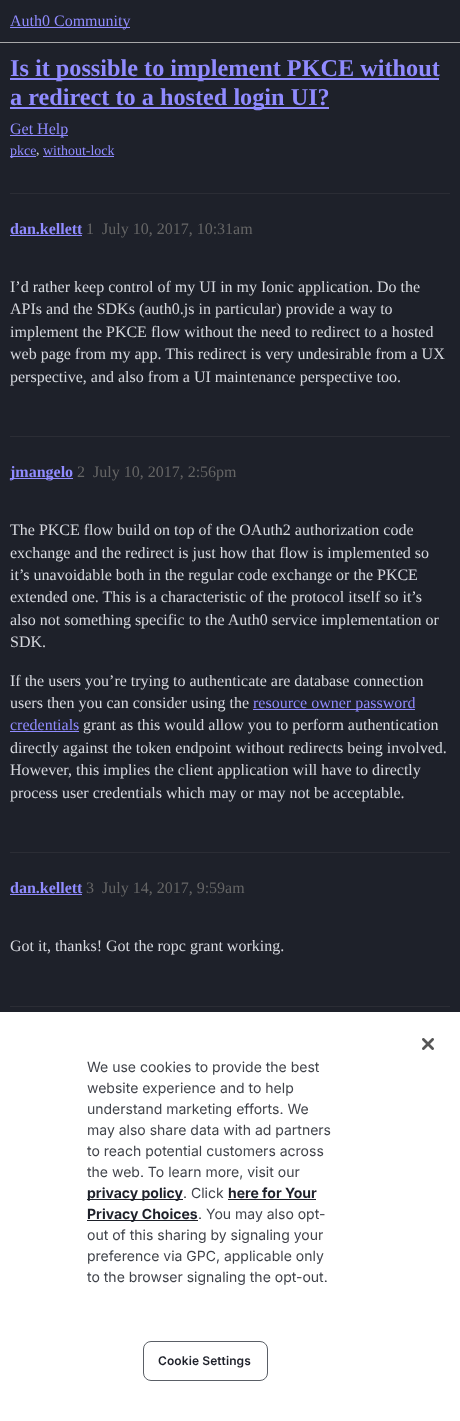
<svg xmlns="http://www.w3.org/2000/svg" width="460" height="1421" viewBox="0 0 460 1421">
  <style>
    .t1 { font: 16px Liberation Serif; fill: #908bff; }
    .t2 { font: bold 24.25px Liberation Serif; fill: #908bff; }
    .t3 { font: 14px Liberation Serif; fill: #908bff; }
    .t4 { font: 14px Liberation Serif; fill: #d6d8de; }
    .t5 { font: bold 16px Liberation Serif; fill: #908bff; }
    .t6 { font: 16px Liberation Serif; fill: #666; }
    .t7 { font: 16px Liberation Serif; fill: #d6d8de; }
    .t8 { font: 14px Inter; fill: #41444b; }
    .t9 { font: bold 14px Inter; fill: #1e212a; }
    .t10 { font: 600 12px Inter; letter-spacing: 0.1px; fill: #1e212a; }
  </style>
  <rect width="100%" height="100%" fill="#1e212a"/>
  <rect x="0" y="42" width="460" height="1" fill="#a8a8a9"/>
  <rect x="10" y="27" width="120" height="1" fill="#908bff"/>
  <text x="10" y="26" class="t1">Auth0 Community</text>
  <rect x="10" y="78" width="429" height="2" fill="#908bff"/>
  <text x="10" y="76" class="t2">Is it possible to implement PKCE without</text>
  <rect x="10" y="107" width="319" height="2" fill="#908bff"/>
  <text x="10" y="105" class="t2">a redirect to a hosted login UI?</text>
  <rect x="10" y="135" width="58" height="1" fill="#908bff"/>
  <text x="10" y="134" class="t1">Get Help</text>
  <rect x="10" y="156" width="26" height="1" fill="#908bff"/>
  <text x="10" y="155" class="t3">pkce</text>
  <text x="36" y="154" class="t4">,</text>
  <text x="43" y="155" class="t3">without-lock</text>
  <rect x="43" y="156" width="71" height="1" fill="#908bff"/>
  <rect x="10" y="193" width="440" height="1" fill="#2b2d35"/>
  <text x="10" y="234" class="t5">dan.kellett</text>
  <rect x="10" y="235" width="72" height="1" fill="#908bff"/>
  <text x="86" y="234" class="t6">1</text>
  <text x="102" y="234" class="t6">July 10, 2017, 10:31am</text>
  <text x="10" y="292" class="t7">I’d rather keep control of my UI in my Ionic application. Do the</text>
  <text x="10" y="314" class="t7">APIs and the SDKs (auth0.js in particular) provide a way to</text>
  <text x="10" y="337" class="t7">implement the PKCE flow without the need to redirect to a hosted</text>
  <text x="10" y="359" class="t7">web page from my app. This redirect is very undesirable from a UX</text>
  <text x="10" y="382" class="t7">perspective, and also from a UI maintenance perspective too.</text>
  <rect x="10" y="436" width="440" height="1" fill="#2b2d35"/>
  <rect x="10" y="478" width="63" height="1" fill="#908bff"/>
  <text x="10" y="477" class="t5">jmangelo</text>
  <text x="77" y="477" class="t6">2</text>
  <text x="93" y="477" class="t6">July 10, 2017, 2:56pm</text>
  <text x="10" y="535" class="t7">The PKCE flow build on top of the OAuth2 authorization code</text>
  <text x="10" y="558" class="t7">exchange and the redirect is just how that flow is implemented so</text>
  <text x="10" y="580" class="t7">it’s unavoidable both in the regular code exchange or the PKCE</text>
  <text x="10" y="602" class="t7">extended one. This is a characteristic of the protocol itself so it’s</text>
  <text x="10" y="625" class="t7">also not something specific to the Auth0 service implementation or</text>
  <text x="10" y="647" class="t7">SDK.</text>
  <text x="10" y="686" class="t7">If the users you’re trying to authenticate are database connection</text>
  <text x="10" y="708" class="t7">users then you can consider using the</text>
  <rect x="253" y="709" width="162" height="1" fill="#908bff"/>
  <text x="253" y="708" class="t1">resource owner password</text>
  <text x="10" y="730" class="t1">credentials</text>
  <rect x="10" y="731" width="69" height="1" fill="#908bff"/>
  <text x="83" y="730" class="t7">grant as this would allow you to perform authentication</text>
  <text x="10" y="753" class="t7">directly against the token endpoint without redirects being involved.</text>
  <text x="10" y="775" class="t7">However, this implies the client application will have to directly</text>
  <text x="10" y="798" class="t7">process user credentials which may or may not be acceptable.</text>
  <rect x="10" y="852" width="440" height="1" fill="#2b2d35"/>
  <text x="10" y="893" class="t5">dan.kellett</text>
  <rect x="10" y="894" width="72" height="1" fill="#908bff"/>
  <text x="86" y="893" class="t6">3</text>
  <text x="102" y="893" class="t6">July 14, 2017, 9:59am</text>
  <text x="10" y="951" class="t7">Got it, thanks! Got the ropc grant working.</text>
  <rect x="10" y="1006" width="440" height="1" fill="#2b2d35"/>
  <rect x="0" y="1012" width="460" height="409" fill="#fff"/>
  <image x="422" y="1038" width="12" height="12" href="images/1.png"/>
  <text x="87" y="1072" class="t8">We use cookies to provide the best</text>
  <text x="87" y="1093" class="t8">website experience and to help</text>
  <text x="87" y="1114" class="t8">understand marketing efforts. We</text>
  <text x="87" y="1135" class="t8">may also share data with ad partners</text>
  <text x="87" y="1156" class="t8">to reach potential customers across</text>
  <text x="87" y="1177" class="t8">the web. To learn more, visit our</text>
  <rect x="87" y="1199" width="96" height="1" fill="#1e212a"/>
  <text x="87" y="1198" class="t9">privacy policy</text>
  <text x="183" y="1198" class="t8">. Click</text>
  <text x="228" y="1198" class="t9">here for Your</text>
  <rect x="228" y="1199" width="88" height="1" fill="#1e212a"/>
  <rect x="87" y="1220" width="111" height="1" fill="#1e212a"/>
  <text x="87" y="1219" class="t9">Privacy Choices</text>
  <text x="198" y="1219" class="t8">. You may also opt-</text>
  <text x="87" y="1240" class="t8">out of this sharing by signaling your</text>
  <text x="87" y="1261" class="t8">preference via GPC, applicable only</text>
  <text x="87" y="1282" class="t8">to the browser signaling the opt-out.</text>
  <rect x="143.5" y="1341.5" width="124" height="39" rx="7.5" fill="none" stroke="#5a5f66"/>
  <text x="158" y="1365" class="t10">Cookie Settings</text>
</svg>
